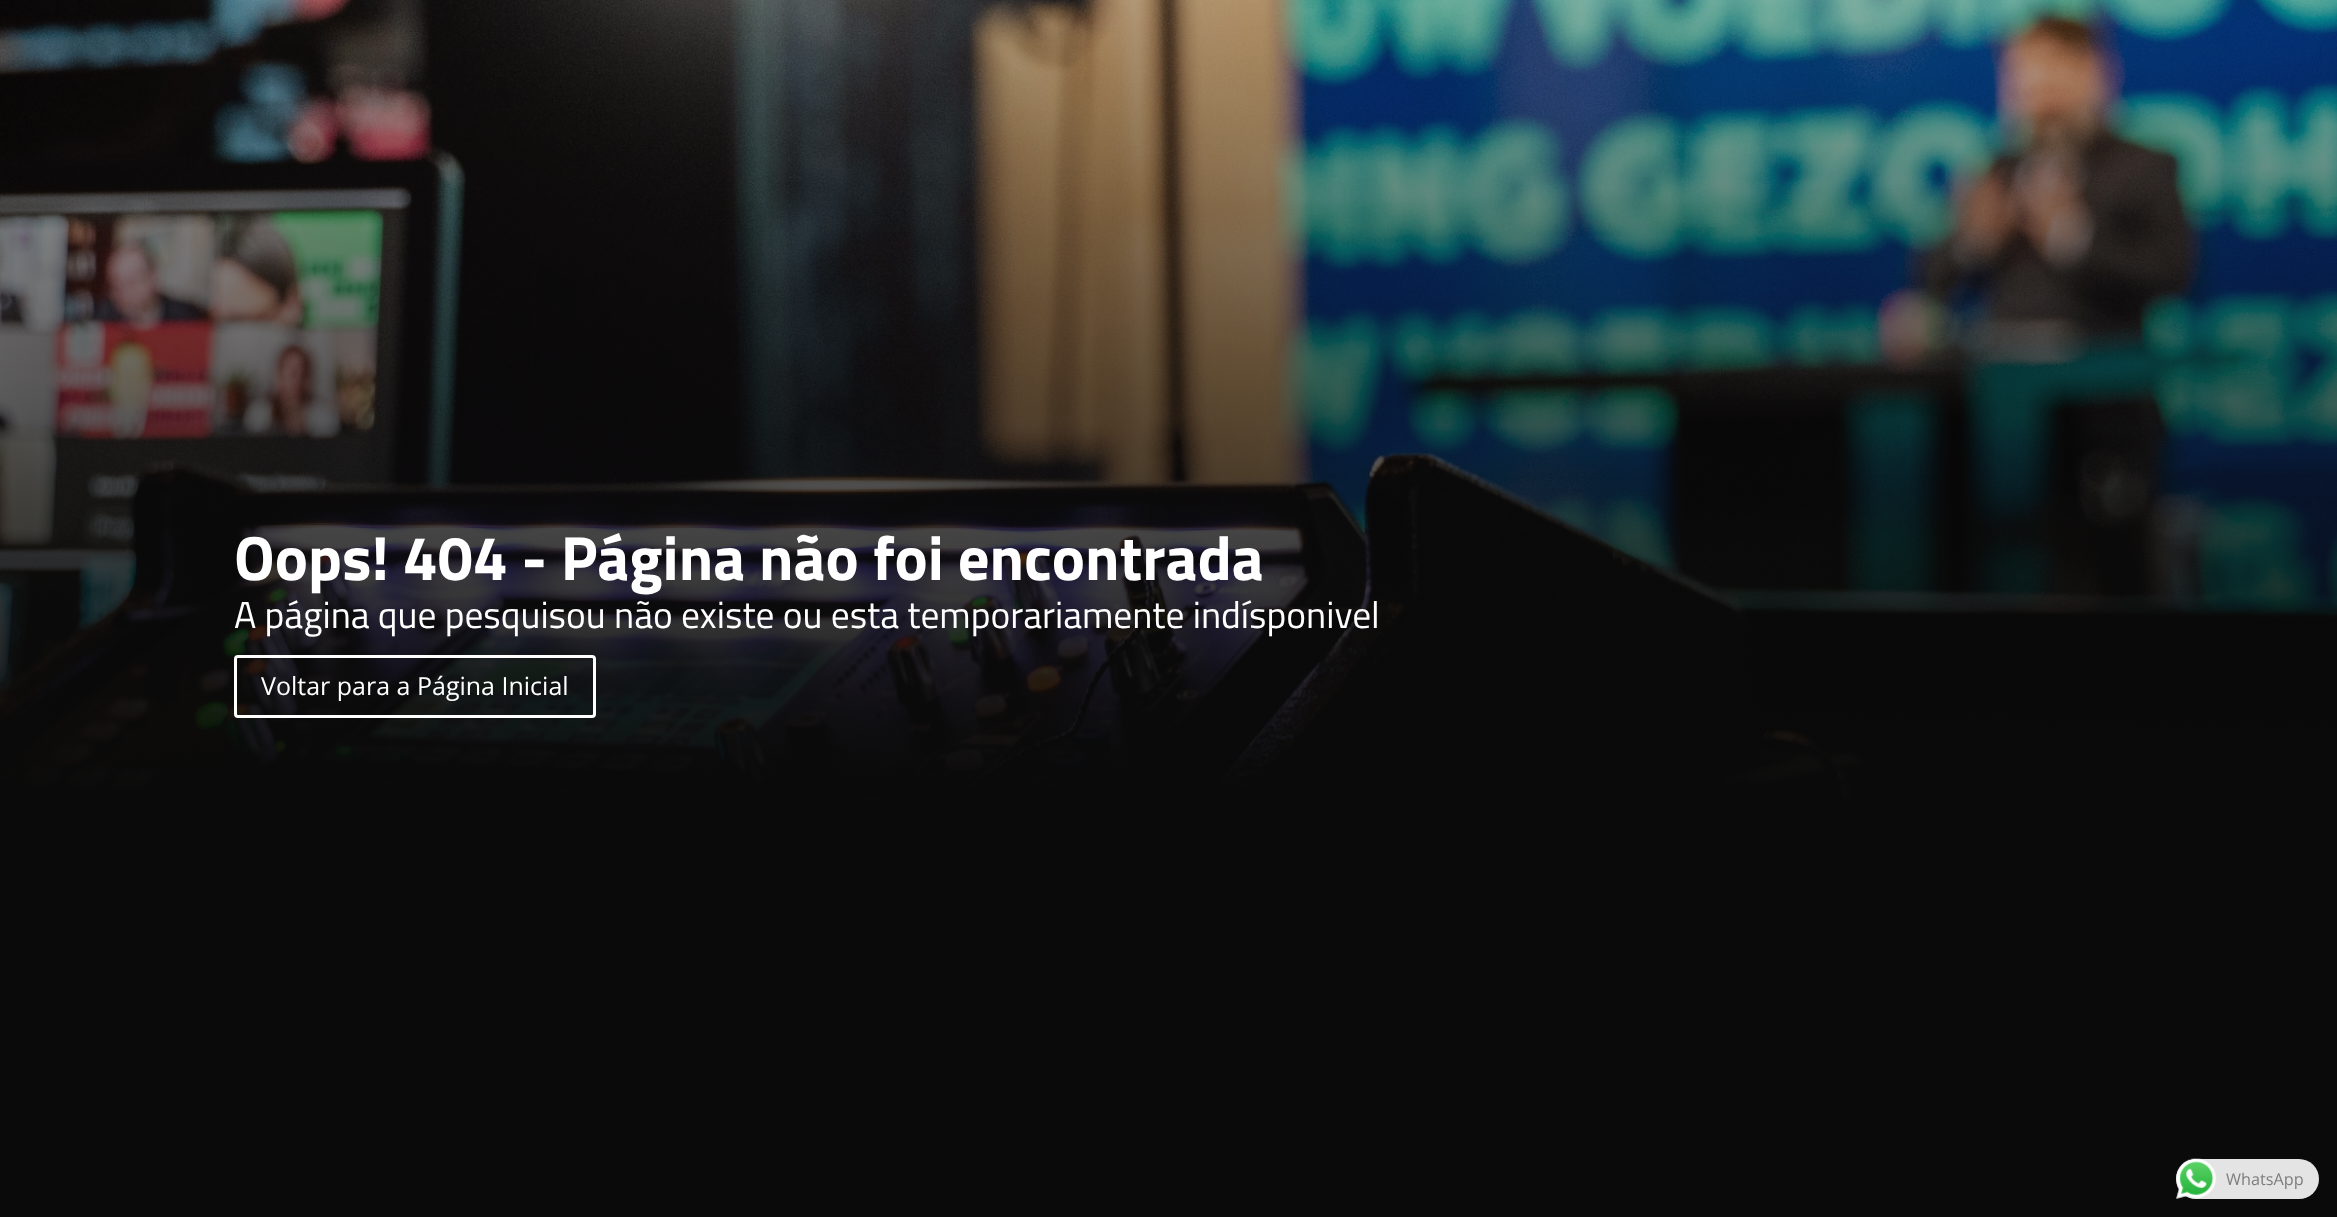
<svg xmlns="http://www.w3.org/2000/svg" width="2337" height="1217" viewBox="0 0 2337 1217">
  <style>
    .t1 { font: bold 62.5px Titillium Web; fill: #fff; }
    .t2 { font: 37.5px Titillium Web; fill: #fff; }
    .t3 { font: 25px Open Sans; fill: #fff; }
    .t4 { font: 16.25px Open Sans; fill: #7f7d7d; }
  </style>
  <rect width="100%" height="100%" fill="#fff"/>
  <image x="0" y="0" width="2337" height="1217" href="images/1.png"/>
  <text x="234" y="580" class="t1">Oops! 404 - Página não foi encontrada</text>
  <text x="234" y="628" class="t2">A página que pesquisou não existe ou esta temporariamente indísponivel</text>
  <rect x="235.5" y="656.5" width="359" height="60" rx="2.5" fill="none" stroke="#fff" stroke-width="3"/>
  <text x="261" y="695" class="t3">Voltar para a Página Inicial</text>
  <rect x="2176" y="1159" width="143" height="40" rx="20" fill="#e4e4e4"/>
  <image x="2176" y="1158" width="41" height="41" href="images/2.png"/>
  <text x="2226" y="1185" class="t4">WhatsApp</text>
</svg>
